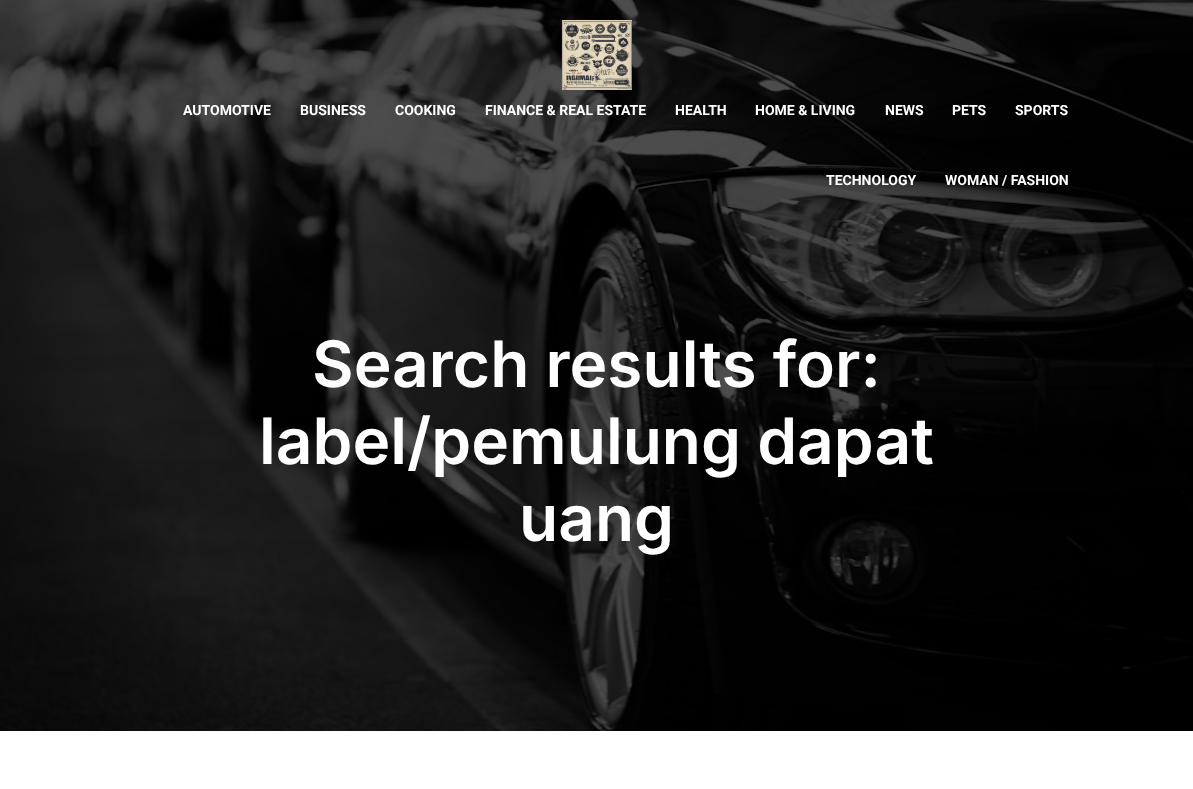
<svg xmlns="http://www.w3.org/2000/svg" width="1193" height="789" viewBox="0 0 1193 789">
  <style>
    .t1 { font: bold 14px Roboto; fill: #fff; }
    .t2 { font: 600 64px Inter; fill: #fff; }
  </style>
  <rect width="100%" height="100%" fill="#fff"/>
  <image x="0" y="0" width="1193" height="731" href="images/2.png"/>
  <image x="561" y="20" width="71" height="70" href="images/1.png"/>
  <text x="183" y="115" class="t1">AUTOMOTIVE</text>
  <text x="300" y="115" class="t1">BUSINESS</text>
  <text x="395" y="115" class="t1">COOKING</text>
  <text x="485" y="115" class="t1">FINANCE &amp; REAL ESTATE</text>
  <text x="675" y="115" class="t1">HEALTH</text>
  <text x="755" y="115" class="t1">HOME &amp; LIVING</text>
  <text x="885" y="115" class="t1">NEWS</text>
  <text x="952" y="115" class="t1">PETS</text>
  <text x="1015" y="115" class="t1">SPORTS</text>
  <text x="826" y="185" class="t1">TECHNOLOGY</text>
  <text x="945" y="185" class="t1">WOMAN / FASHION</text>
  <text x="312" y="387" class="t2">Search results for:</text>
  <text x="259" y="464" class="t2">label/pemulung dapat</text>
  <text x="519" y="541" class="t2">uang</text>
</svg>
